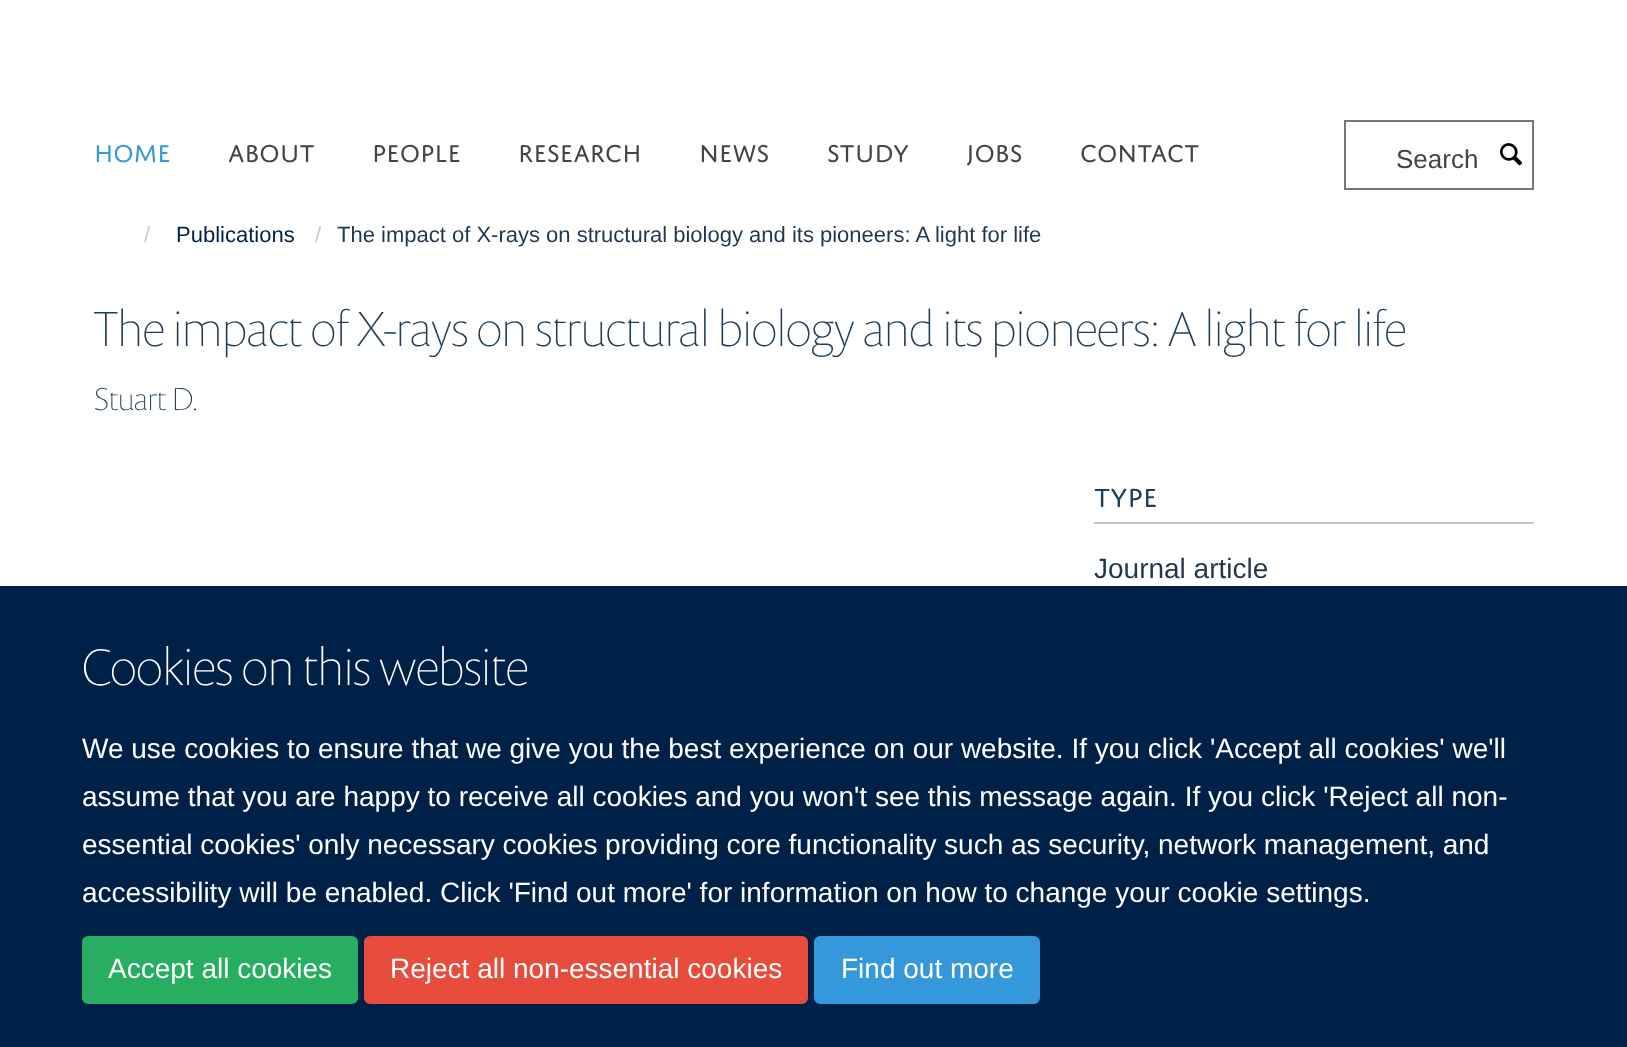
<svg xmlns="http://www.w3.org/2000/svg" width="1627" height="1047" viewBox="0 0 1627 1047">
  <style>
    .t1 { font: 26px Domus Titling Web; fill: #3498db; }
    .t2 { font: 26px Domus Titling Web; fill: #444; }
    .t3 { font: 26px Liberation Sans; fill: #444; }
    .t4 { font: 22px Liberation Sans; fill: #ccc; }
    .t5 { font: 22px Liberation Sans; fill: #002147; }
    .t6 { font: 22px Liberation Sans; fill: #1d3850; }
    .t7 { font: 100 50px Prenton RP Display; fill: #203e58; }
    .t8 { font: 100 32px Prenton RP Display; fill: #203e58; }
    .t9 { font: 28px Domus Titling Web; fill: #203e58; }
    .t10 { font: 28px Liberation Sans; fill: #1d3850; }
    .t11 { font: 100 52px Prenton RP Display; fill: #fff; }
    .t12 { font: 28px Liberation Sans; fill: #fff; }
  </style>
  <rect width="100%" height="100%" fill="#fff"/>
  <text x="94" y="162" class="t1">HOME</text>
  <text x="228" y="162" class="t2">ABOUT</text>
  <text x="372" y="162" class="t2">PEOPLE</text>
  <text x="518" y="162" class="t2">RESEARCH</text>
  <text x="699" y="162" class="t2">NEWS</text>
  <text x="827" y="162" class="t2">STUDY</text>
  <text x="966" y="162" class="t2">JOBS</text>
  <text x="1080" y="162" class="t2">CONTACT</text>
  <rect x="1345" y="121" width="188" height="68" fill="none" stroke="#777" stroke-width="2"/>
  <text x="1396" y="168" class="t3">Search</text>
  <image x="1500" y="143" width="23" height="23" href="images/1.png"/>
  <text x="144" y="242" class="t4">/</text>
  <text x="176" y="242" class="t5">Publications</text>
  <text x="315" y="242" class="t4">/</text>
  <text x="337" y="242" class="t6">The impact of X-rays on structural biology and its pioneers: A light for life</text>
  <text x="94" y="346" class="t7">The impact of X-rays on structural biology and its pioneers: A light for life</text>
  <text x="94" y="410" class="t8">Stuart D.</text>
  <rect x="1094" y="522" width="440" height="2" fill="#c6cacf"/>
  <text x="1094" y="507" class="t9">TYPE</text>
  <text x="1094" y="578" class="t10">Journal article</text>
  <rect x="0" y="586" width="1627" height="461" fill="#002147"/>
  <text x="82" y="685" class="t11">Cookies on this website</text>
  <text x="82" y="758" class="t12">We use cookies to ensure that we give you the best experience on our website. If you click 'Accept all cookies' we'll</text>
  <text x="82" y="806" class="t12">assume that you are happy to receive all cookies and you won't see this message again. If you click 'Reject all non-</text>
  <text x="82" y="854" word-spacing="-0.1" class="t12">essential cookies' only necessary cookies providing core functionality such as security, network management, and</text>
  <text x="82" y="902" class="t12">accessibility will be enabled. Click 'Find out more' for information on how to change your cookie settings.</text>
  <rect x="83" y="937" width="274" height="66" rx="5" fill="#27ae60" stroke="#27ae60" stroke-width="2"/>
  <text x="108" y="978" class="t12">Accept all cookies</text>
  <rect x="365" y="937" width="442" height="66" rx="5" fill="#e74c3c" stroke="#e74c3c" stroke-width="2"/>
  <text x="390" y="978" class="t12">Reject all non-essential cookies</text>
  <rect x="815" y="937" width="224" height="66" rx="5" fill="#3498db" stroke="#3498db" stroke-width="2"/>
  <text x="841" y="978" class="t12">Find out more</text>
</svg>
